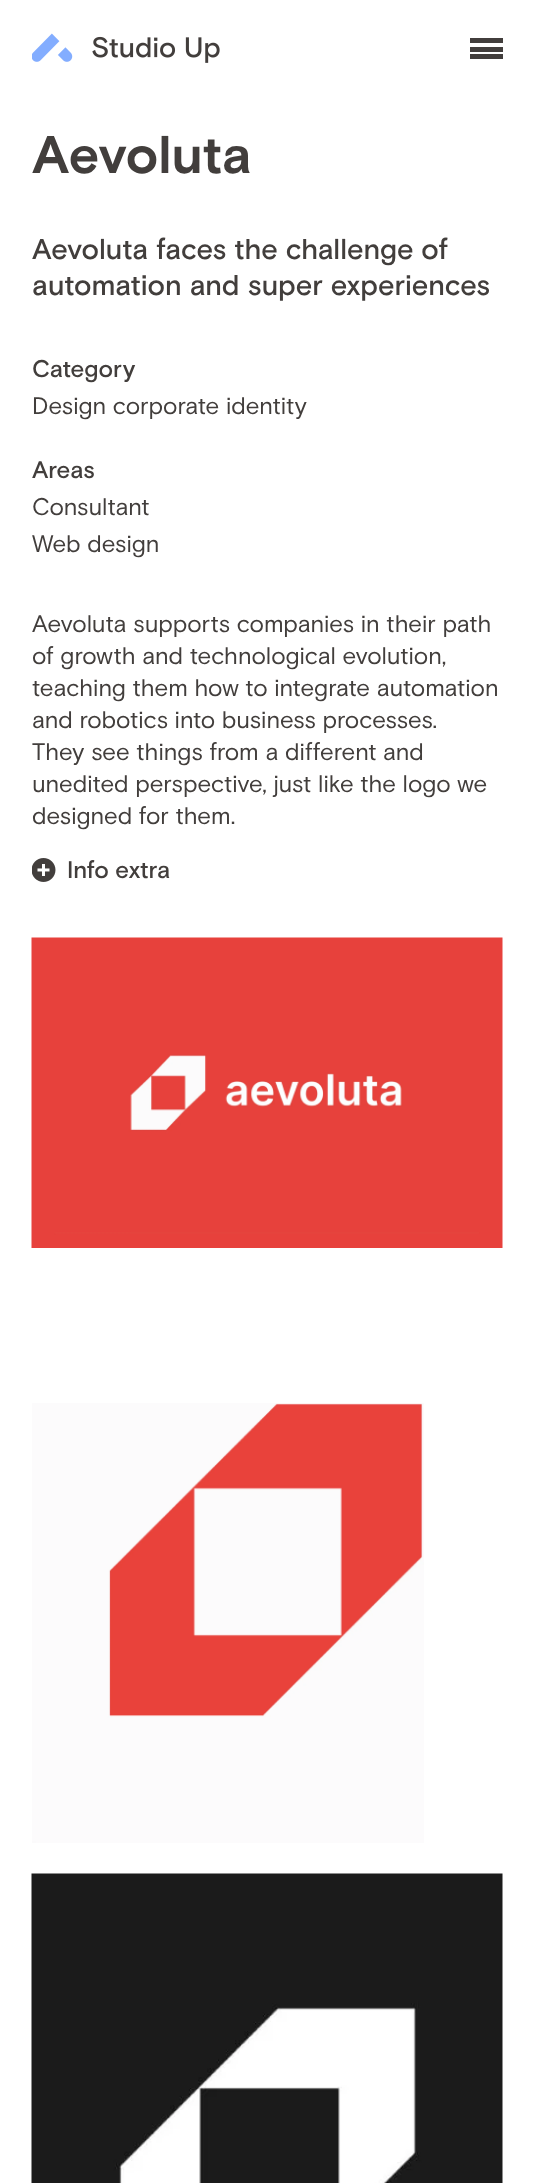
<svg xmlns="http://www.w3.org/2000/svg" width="534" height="2183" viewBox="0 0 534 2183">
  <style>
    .t1 { font: bold 53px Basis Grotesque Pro; fill: #423e3c; }
    .t2 { font: 500 28.75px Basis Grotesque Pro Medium; fill: #423e3c; }
    .t3 { font: 500 24px Basis Grotesque Pro Medium; fill: #423e3c; }
    .t4 { font: 24px Basis Grotesque Pro; fill: #423e3c; }
  </style>
  <rect width="100%" height="100%" fill="#fff"/>
  <image x="32" y="33" width="188" height="30" href="images/1.png"/>
  <rect x="470" y="38" width="33" height="5" fill="#423e3c"/>
  <rect x="470" y="47" width="33" height="5" fill="#423e3c"/>
  <rect x="470" y="54" width="33" height="5" fill="#423e3c"/>
  <text x="32" y="173" class="t1">Aevoluta</text>
  <text x="32" y="259" class="t2">Aevoluta faces the challenge of</text>
  <text x="32" y="295" class="t2">automation and super experiences</text>
  <text x="32" y="377" class="t3">Category</text>
  <text x="32" y="414" class="t4">Design corporate identity</text>
  <text x="32" y="478" class="t3">Areas</text>
  <text x="32" y="515" class="t4">Consultant</text>
  <text x="32" y="552" class="t4">Web design</text>
  <text x="32" y="632" class="t4">Aevoluta supports companies in their path</text>
  <text x="32" y="664" class="t4">of growth and technological evolution,</text>
  <text x="32" y="696" class="t4">teaching them how to integrate automation</text>
  <text x="32" y="728" class="t4">and robotics into business processes.</text>
  <text x="32" y="760" class="t4">They see things from a different and</text>
  <text x="32" y="792" class="t4">unedited perspective, just like the logo we</text>
  <text x="32" y="824" class="t4">designed for them.</text>
  <image x="32" y="858" width="24" height="24" href="images/2.png"/>
  <text x="67" y="878" class="t3">Info extra</text>
  <image x="31" y="937" width="472" height="311" href="images/3.png"/>
  <image x="32" y="1403" width="392" height="440" href="images/4.png"/>
  <image x="31" y="1873" width="472" height="310" href="images/5.png"/>
</svg>
